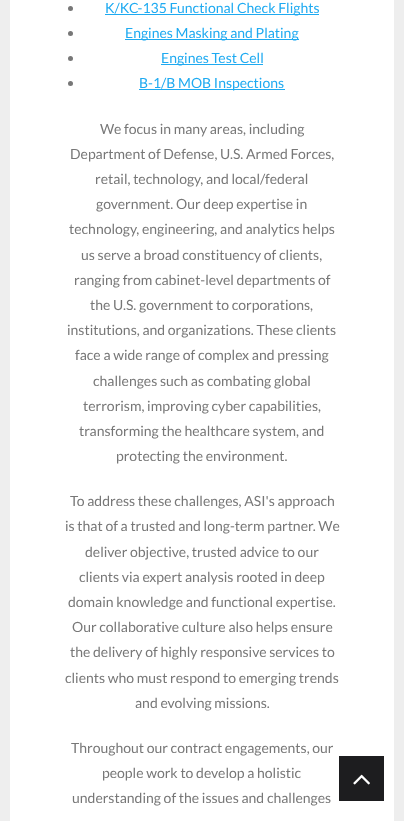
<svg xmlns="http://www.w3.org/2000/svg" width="404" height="821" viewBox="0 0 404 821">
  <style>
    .t1 { font: 14px Lato; fill: #1eaaf1; }
    .t2 { font: 14px Lato; fill: #777; }
  </style>
  <rect width="100%" height="100%" fill="#eee"/>
  <rect x="10" y="0" width="384" height="821" fill="#fff"/>
  <circle cx="70.5" cy="8.5" r="2.5" fill="#777"/>
  <rect x="105" y="14" width="214" height="1" fill="#1eaaf1"/>
  <text x="105" y="13" class="t1">K/KC-135 Functional Check Flights</text>
  <circle cx="70.5" cy="33.5" r="2.5" fill="#777"/>
  <rect x="125" y="39" width="174" height="1" fill="#1eaaf1"/>
  <text x="125" y="38" class="t1">Engines Masking and Plating</text>
  <circle cx="70.5" cy="58.5" r="2.5" fill="#777"/>
  <rect x="161" y="64" width="102" height="1" fill="#1eaaf1"/>
  <text x="161" y="63" class="t1">Engines Test Cell</text>
  <circle cx="70.5" cy="83.5" r="2.5" fill="#777"/>
  <rect x="139" y="89" width="146" height="1" fill="#1eaaf1"/>
  <text x="139" y="88" class="t1">B-1/B MOB Inspections</text>
  <text x="100" y="134" class="t2">We focus in many areas, including</text>
  <text x="70" y="159" class="t2">Department of Defense, U.S. Armed Forces,</text>
  <text x="95" y="184" class="t2">retail, technology, and local/federal</text>
  <text x="96" y="209" class="t2">government. Our deep expertise in</text>
  <text x="69" y="234" class="t2">technology, engineering, and analytics helps</text>
  <text x="81" y="260" class="t2">us serve a broad constituency of clients,</text>
  <text x="74" y="285" class="t2">ranging from cabinet-level departments of</text>
  <text x="90" y="310" class="t2">the U.S. government to corporations,</text>
  <text x="67" y="335" class="t2">institutions, and organizations. These clients</text>
  <text x="75" y="360" class="t2">face a wide range of complex and pressing</text>
  <text x="93" y="386" class="t2">challenges such as combating global</text>
  <text x="83" y="411" class="t2">terrorism, improving cyber capabilities,</text>
  <text x="79" y="436" class="t2">transforming the healthcare system, and</text>
  <text x="116" y="461" class="t2">protecting the environment.</text>
  <text x="70" y="506" class="t2">To address these challenges, ASI's approach</text>
  <text x="65" y="531" class="t2">is that of a trusted and long-term partner. We</text>
  <text x="85" y="557" class="t2">deliver objective, trusted advice to our</text>
  <text x="79" y="582" class="t2">clients via expert analysis rooted in deep</text>
  <text x="68" y="607" class="t2">domain knowledge and functional expertise.</text>
  <text x="72" y="632" class="t2">Our collaborative culture also helps ensure</text>
  <text x="70" y="657" class="t2">the delivery of highly responsive services to</text>
  <text x="65" y="683" class="t2">clients who must respond to emerging trends</text>
  <text x="135" y="708" class="t2">and evolving missions.</text>
  <text x="71" y="753" class="t2">Throughout our contract engagements, our</text>
  <text x="102" y="778" class="t2">people work to develop a holistic</text>
  <text x="72" y="803" class="t2">understanding of the issues and challenges</text>
  <rect x="339" y="756" width="45" height="45" fill="#1d1d1f"/>
  <image x="353" y="774" width="17" height="11" href="images/1.png"/>
</svg>
